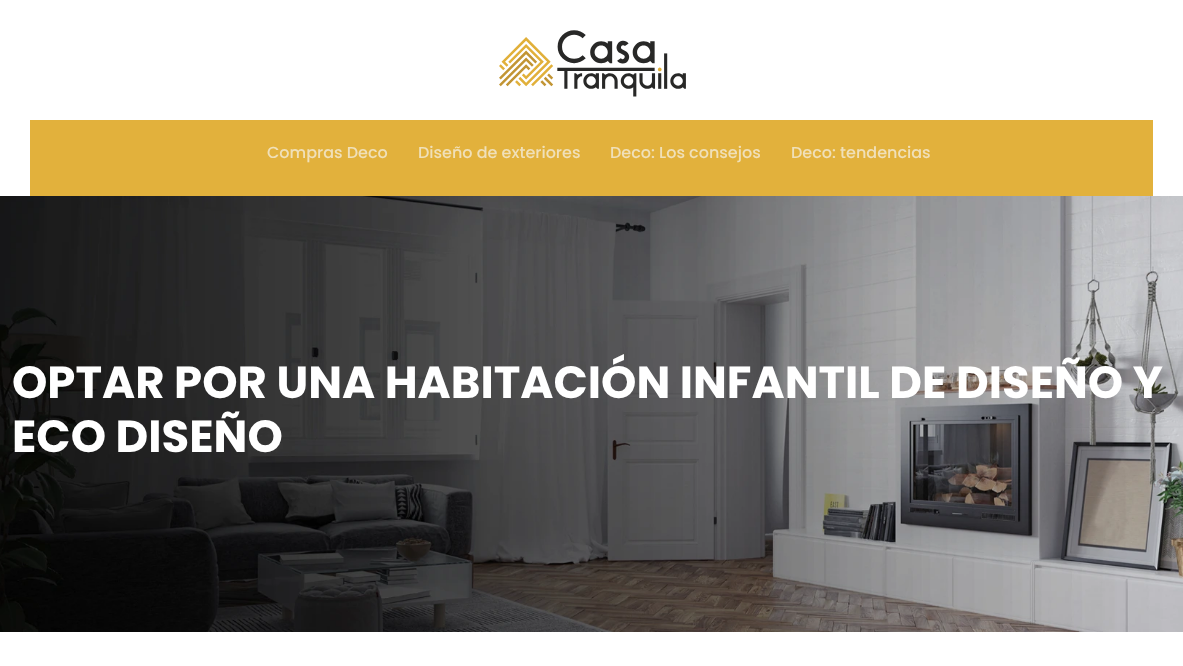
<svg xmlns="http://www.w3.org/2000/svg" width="1183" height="666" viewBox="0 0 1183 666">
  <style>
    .t1 { font: 500 16px Poppins; fill: #f0e0b9; }
    .t2 { font: bold 45px Poppins; fill: #fff; }
  </style>
  <rect width="100%" height="100%" fill="#fff"/>
  <image x="499" y="30" width="187" height="67" href="images/1.png"/>
  <rect x="30" y="120" width="1123" height="76" fill="#e2b13c"/>
  <text x="267" y="158" class="t1">Compras Deco</text>
  <text x="418" y="158" class="t1">Diseño de exteriores</text>
  <text x="610" y="158" class="t1">Deco: Los consejos</text>
  <text x="791" y="158" class="t1">Deco: tendencias</text>
  <image x="0" y="196" width="1183" height="436" href="images/2.png"/>
  <text x="12" y="398" class="t2">OPTAR POR UNA HABITACIÓN INFANTIL DE DISEÑO Y</text>
  <text x="12" y="452" class="t2">ECO DISEÑO</text>
</svg>
